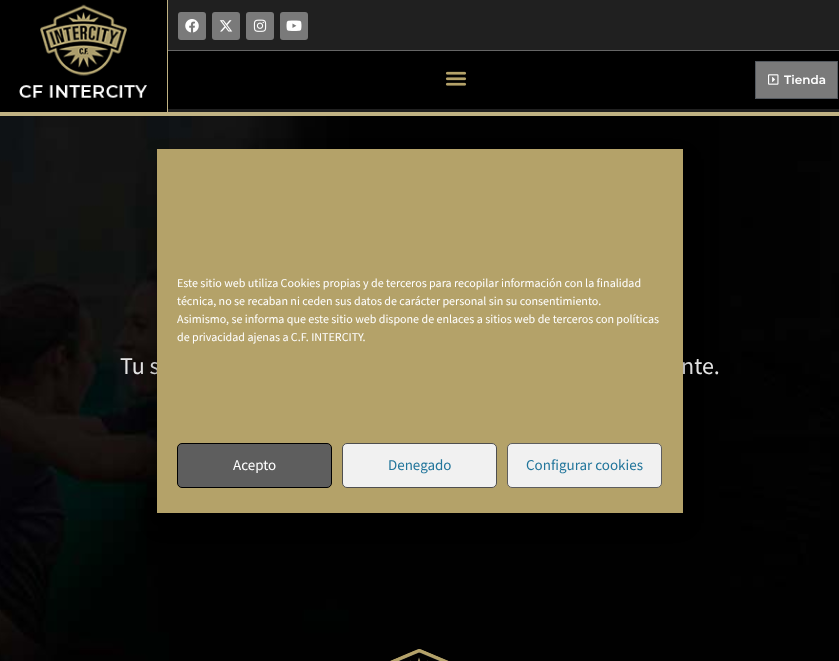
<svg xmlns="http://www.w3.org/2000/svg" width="839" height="661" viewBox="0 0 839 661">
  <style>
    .t1 { font: 600 12px Montserrat; fill: #fff; }
    .t2 { font: 24px Source Sans Pro; fill: #e4e4e4; }
    .t3 { font: 12px Source Sans Pro; fill: #fff; }
    .t4 { font: 15px Source Sans Pro; fill: #fff; }
    .t5 { font: 15px Source Sans Pro; fill: #21759b; }
  </style>
  <rect width="100%" height="100%" fill="#000"/>
  <rect x="0" y="112" width="839" height="4" fill="#c0b283"/>
  <rect x="167" y="0" width="1" height="112" fill="#c0b283"/>
  <image x="19" y="4" width="128" height="94" href="images/1.png"/>
  <rect x="168" y="0" width="671" height="112" fill="#202020"/>
  <rect x="178" y="12" width="28" height="28" rx="3" fill="#7a7a7a"/>
  <image x="185" y="19" width="14" height="14" href="images/2.png"/>
  <rect x="212" y="12" width="28" height="28" rx="3" fill="#7a7a7a"/>
  <image x="219" y="20" width="14" height="12" href="images/3.png"/>
  <rect x="246" y="12" width="28" height="28" rx="3" fill="#7a7a7a"/>
  <image x="253" y="19" width="14" height="13" href="images/4.png"/>
  <rect x="280" y="12" width="28" height="28" rx="3" fill="#7a7a7a"/>
  <image x="286" y="20" width="16" height="11" href="images/5.png"/>
  <rect x="168" y="51" width="671" height="58" fill="#000"/>
  <rect x="168" y="50" width="671" height="1" fill="#666"/>
  <image x="445" y="71" width="22" height="15" href="images/6.png"/>
  <rect x="755.5" y="61.5" width="82" height="37" fill="#7a7a7a" stroke="#54595f"/>
  <image x="768" y="74" width="11" height="11" href="images/7.png"/>
  <text x="784" y="84" class="t1">Tienda</text>
  <image x="0" y="116" width="839" height="545" href="images/8.png"/>
  <text x="120" y="374" class="t2">Tu s</text>
  <text x="681" y="374" class="t2">nte.</text>
  <image x="390" y="649" width="59" height="12" href="images/9.png"/>
  <rect x="157" y="155" width="526" height="364" fill="#0000003b" filter="blur(3px)"/>
  <rect x="157" y="159" width="526" height="364" fill="#00000030" filter="blur(10px)"/>
  <rect x="157" y="149" width="526" height="364" fill="#b4a269"/>
  <text x="177" y="287" class="t3">Este sitio web utiliza Cookies propias y de terceros para recopilar información con la finalidad</text>
  <text x="177" y="305" class="t3">técnica, no se recaban ni ceden sus datos de carácter personal sin su consentimiento.</text>
  <text x="177" y="323" class="t3">Asimismo, se informa que este sitio web dispone de enlaces a sitios web de terceros con políticas</text>
  <text x="177" y="341" class="t3">de privacidad ajenas a C.F. INTERCITY.</text>
  <rect x="177.5" y="443.5" width="154" height="44" rx="4.5" fill="#5e5e5e" stroke="#000"/>
  <text x="233" y="470" class="t4">Acepto</text>
  <rect x="342.5" y="443.5" width="154" height="44" rx="4.5" fill="#f1f1f1" stroke="#4f4f4f"/>
  <text x="388" y="470" class="t5">Denegado</text>
  <rect x="507.5" y="443.5" width="154" height="44" rx="4.5" fill="#f1f1f1" stroke="#5e5e5e"/>
  <text x="526" y="470" class="t5">Configurar cookies</text>
</svg>
